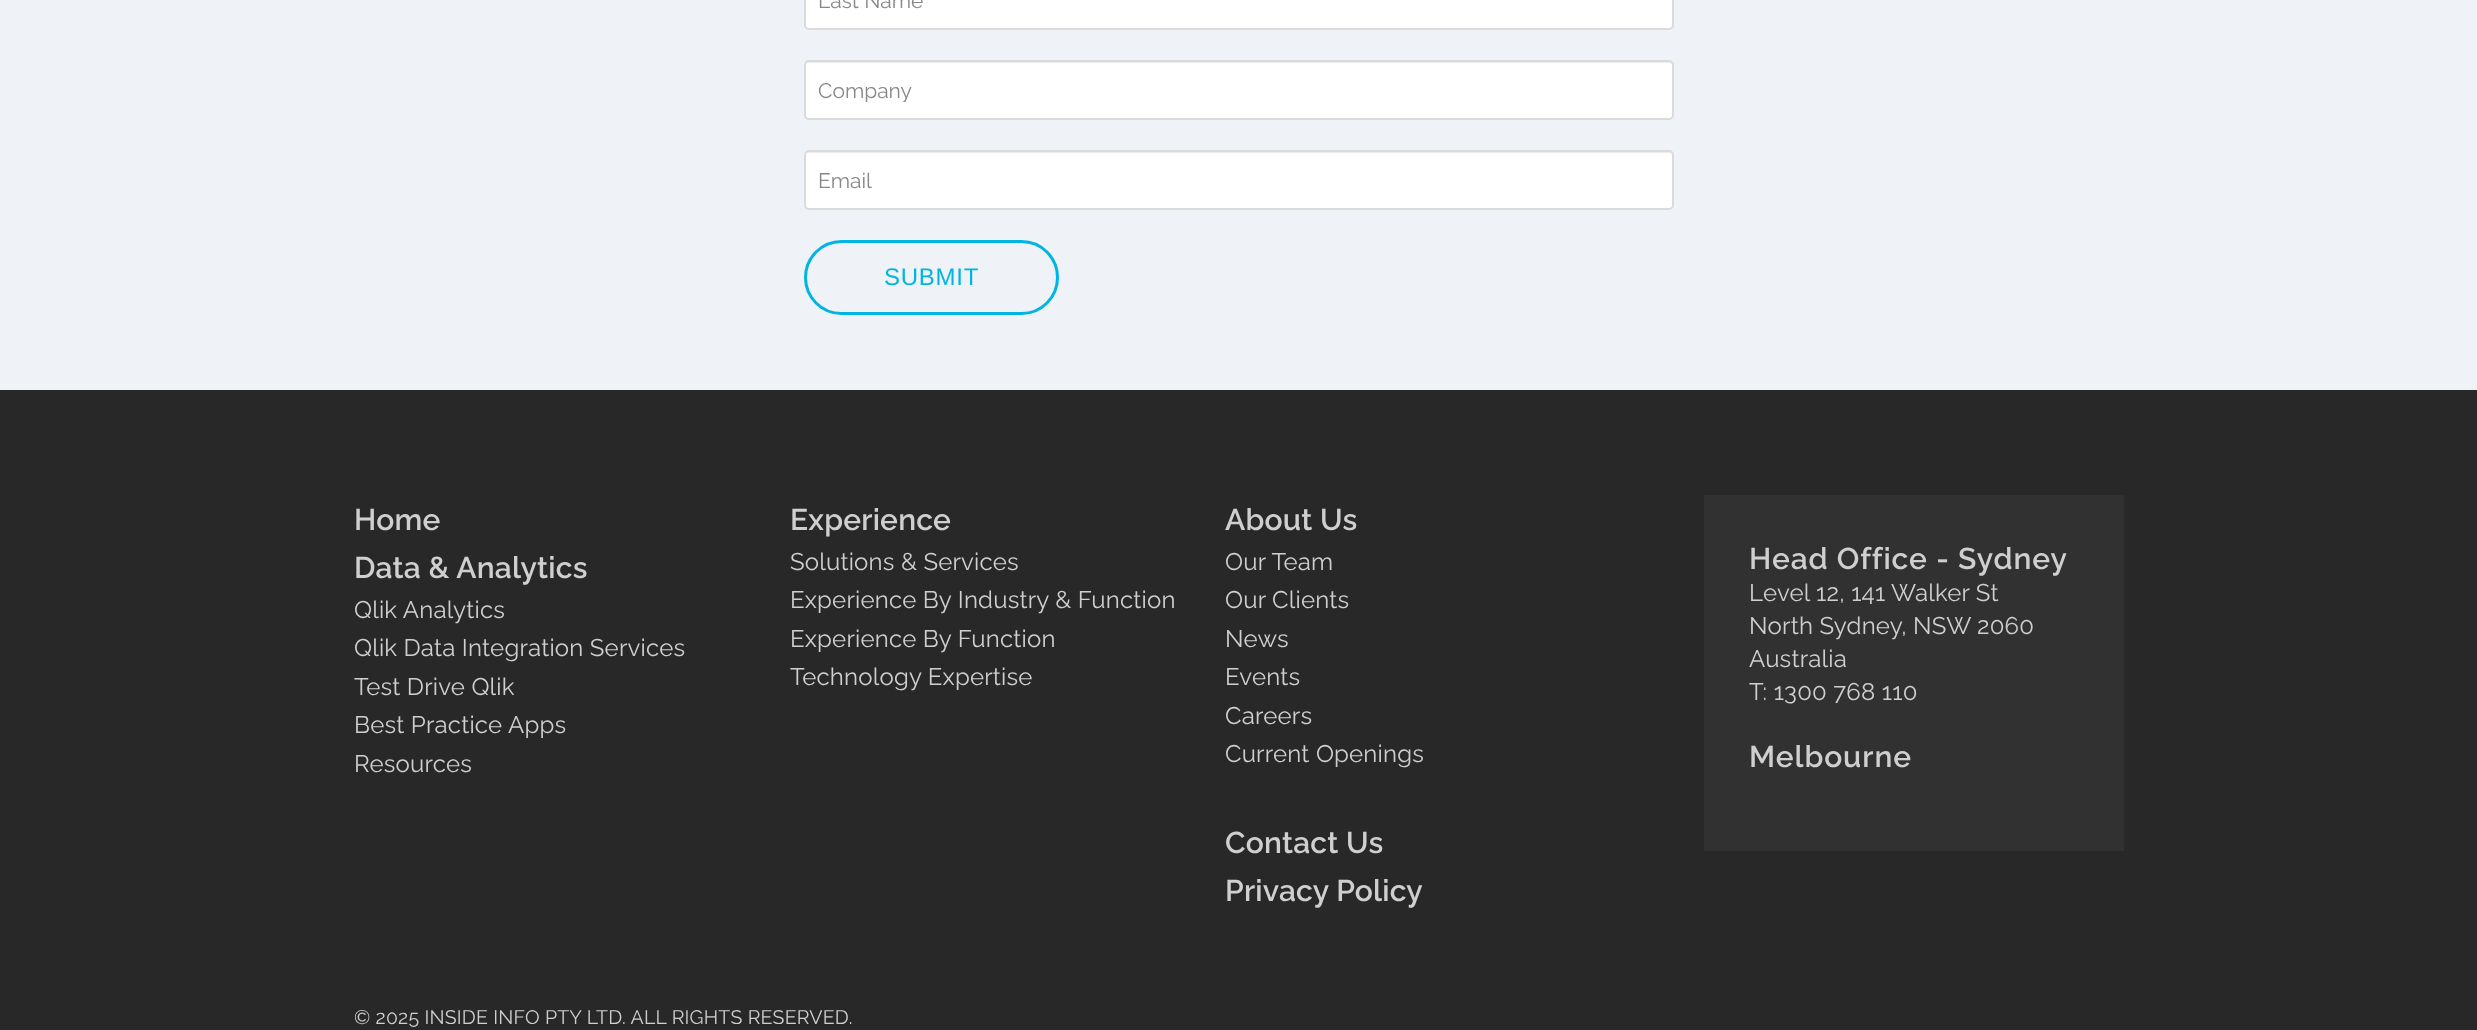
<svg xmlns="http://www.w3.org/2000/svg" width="2477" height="1030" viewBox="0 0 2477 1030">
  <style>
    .t1 { font: 21px Raleway; fill: #888; }
    .t2 { font: 24px Liberation Sans; letter-spacing: 0.75px; fill: #00b5e1; }
    .t3 { font: 600 30px Raleway; letter-spacing: 0.2px; fill: #cfcfcf; }
    .t4 { font: 24px Raleway; letter-spacing: 0.2px; fill: #cfcfcf; }
    .t5 { font: 600 30px Raleway; letter-spacing: 0.9px; fill: #cfcfcf; }
    .t6 { font: 19.5px Raleway; letter-spacing: 0.2px; fill: #cfcfcf; }
  </style>
  <defs>
    <clipPath id="clip1"><rect x="818" y="78" width="843" height="24"/></clipPath>
  </defs>
  <rect width="100%" height="100%" fill="#282828"/>
  <rect x="0" y="0" width="2477" height="390" fill="#eff2f6"/>
  <rect x="806" y="-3" width="867" height="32" rx="3" fill="#fff"/>
  <rect x="805" y="-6" width="868" height="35" rx="4" fill="none" stroke="#dadada" stroke-width="2"/>
  <text x="818" y="8" class="t1">Last Name</text>
  <rect x="806" y="62" width="867" height="57" rx="3" fill="#fff"/>
  <path d="M808 63H1670C1671 63 1672 64 1672 66V118L1673 116C1674 112 1673 65 1672 63L1671 62H809C807 62 806 64 806 66C806 64 807 63 808 63Z" fill="#00000012"/>
  <rect x="805" y="61" width="868" height="58" rx="4" fill="none" stroke="#dadada" stroke-width="2"/>
  <g clip-path="url(#clip1)">
    <text x="818" y="98" class="t1">Company</text>
  </g>
  <rect x="806" y="152" width="867" height="57" rx="3" fill="#fff"/>
  <path d="M808 153H1670C1671 153 1672 154 1672 156V208L1673 206C1674 202 1673 155 1672 153L1671 152H809C807 152 806 154 806 156C806 154 807 153 808 153Z" fill="#00000012"/>
  <rect x="805" y="151" width="868" height="58" rx="4" fill="none" stroke="#dadada" stroke-width="2"/>
  <text x="818" y="188" class="t1">Email</text>
  <rect x="805.5" y="241.5" width="252" height="72" rx="36" fill="none" stroke="#00b5e1" stroke-width="3"/>
  <text x="884" y="285" class="t2">SUBMIT</text>
  <text x="354" y="530" class="t3">Home</text>
  <text x="354" y="578" class="t3">Data &amp; Analytics</text>
  <text x="354" y="618" class="t4">Qlik Analytics</text>
  <text x="354" y="656" class="t4">Qlik Data Integration Services</text>
  <text x="354" y="695" class="t4">Test Drive Qlik</text>
  <text x="354" y="733" class="t4">Best Practice Apps</text>
  <text x="354" y="772" class="t4">Resources</text>
  <text x="790" y="530" class="t3">Experience</text>
  <text x="790" y="570" class="t4">Solutions &amp; Services</text>
  <text x="790" y="608" class="t4">Experience By Industry &amp; Function</text>
  <text x="790" y="647" class="t4">Experience By Function</text>
  <text x="790" y="685" class="t4">Technology Expertise</text>
  <text x="1225" y="530" class="t3">About Us</text>
  <text x="1225" y="570" class="t4">Our Team</text>
  <text x="1225" y="608" class="t4">Our Clients</text>
  <text x="1225" y="647" class="t4">News</text>
  <text x="1225" y="685" class="t4">Events</text>
  <text x="1225" y="724" class="t4">Careers</text>
  <text x="1225" y="762" class="t4">Current Openings</text>
  <text x="1225" y="853" class="t3">Contact Us</text>
  <text x="1225" y="901" class="t3">Privacy Policy</text>
  <rect x="1704" y="495" width="420" height="356" fill="#313131"/>
  <text x="1749" y="569" class="t5">Head Office - Sydney</text>
  <text x="1749" y="601" class="t4">Level 12, 141 Walker St</text>
  <text x="1749" y="634" class="t4">North Sydney, NSW 2060</text>
  <text x="1749" y="667" class="t4">Australia</text>
  <text x="1749" y="700" class="t4">T: 1300 768 110</text>
  <text x="1749" y="767" class="t5">Melbourne</text>
  <text x="354" y="1024" class="t6">© 2025 INSIDE INFO PTY LTD. ALL RIGHTS RESERVED.</text>
</svg>
